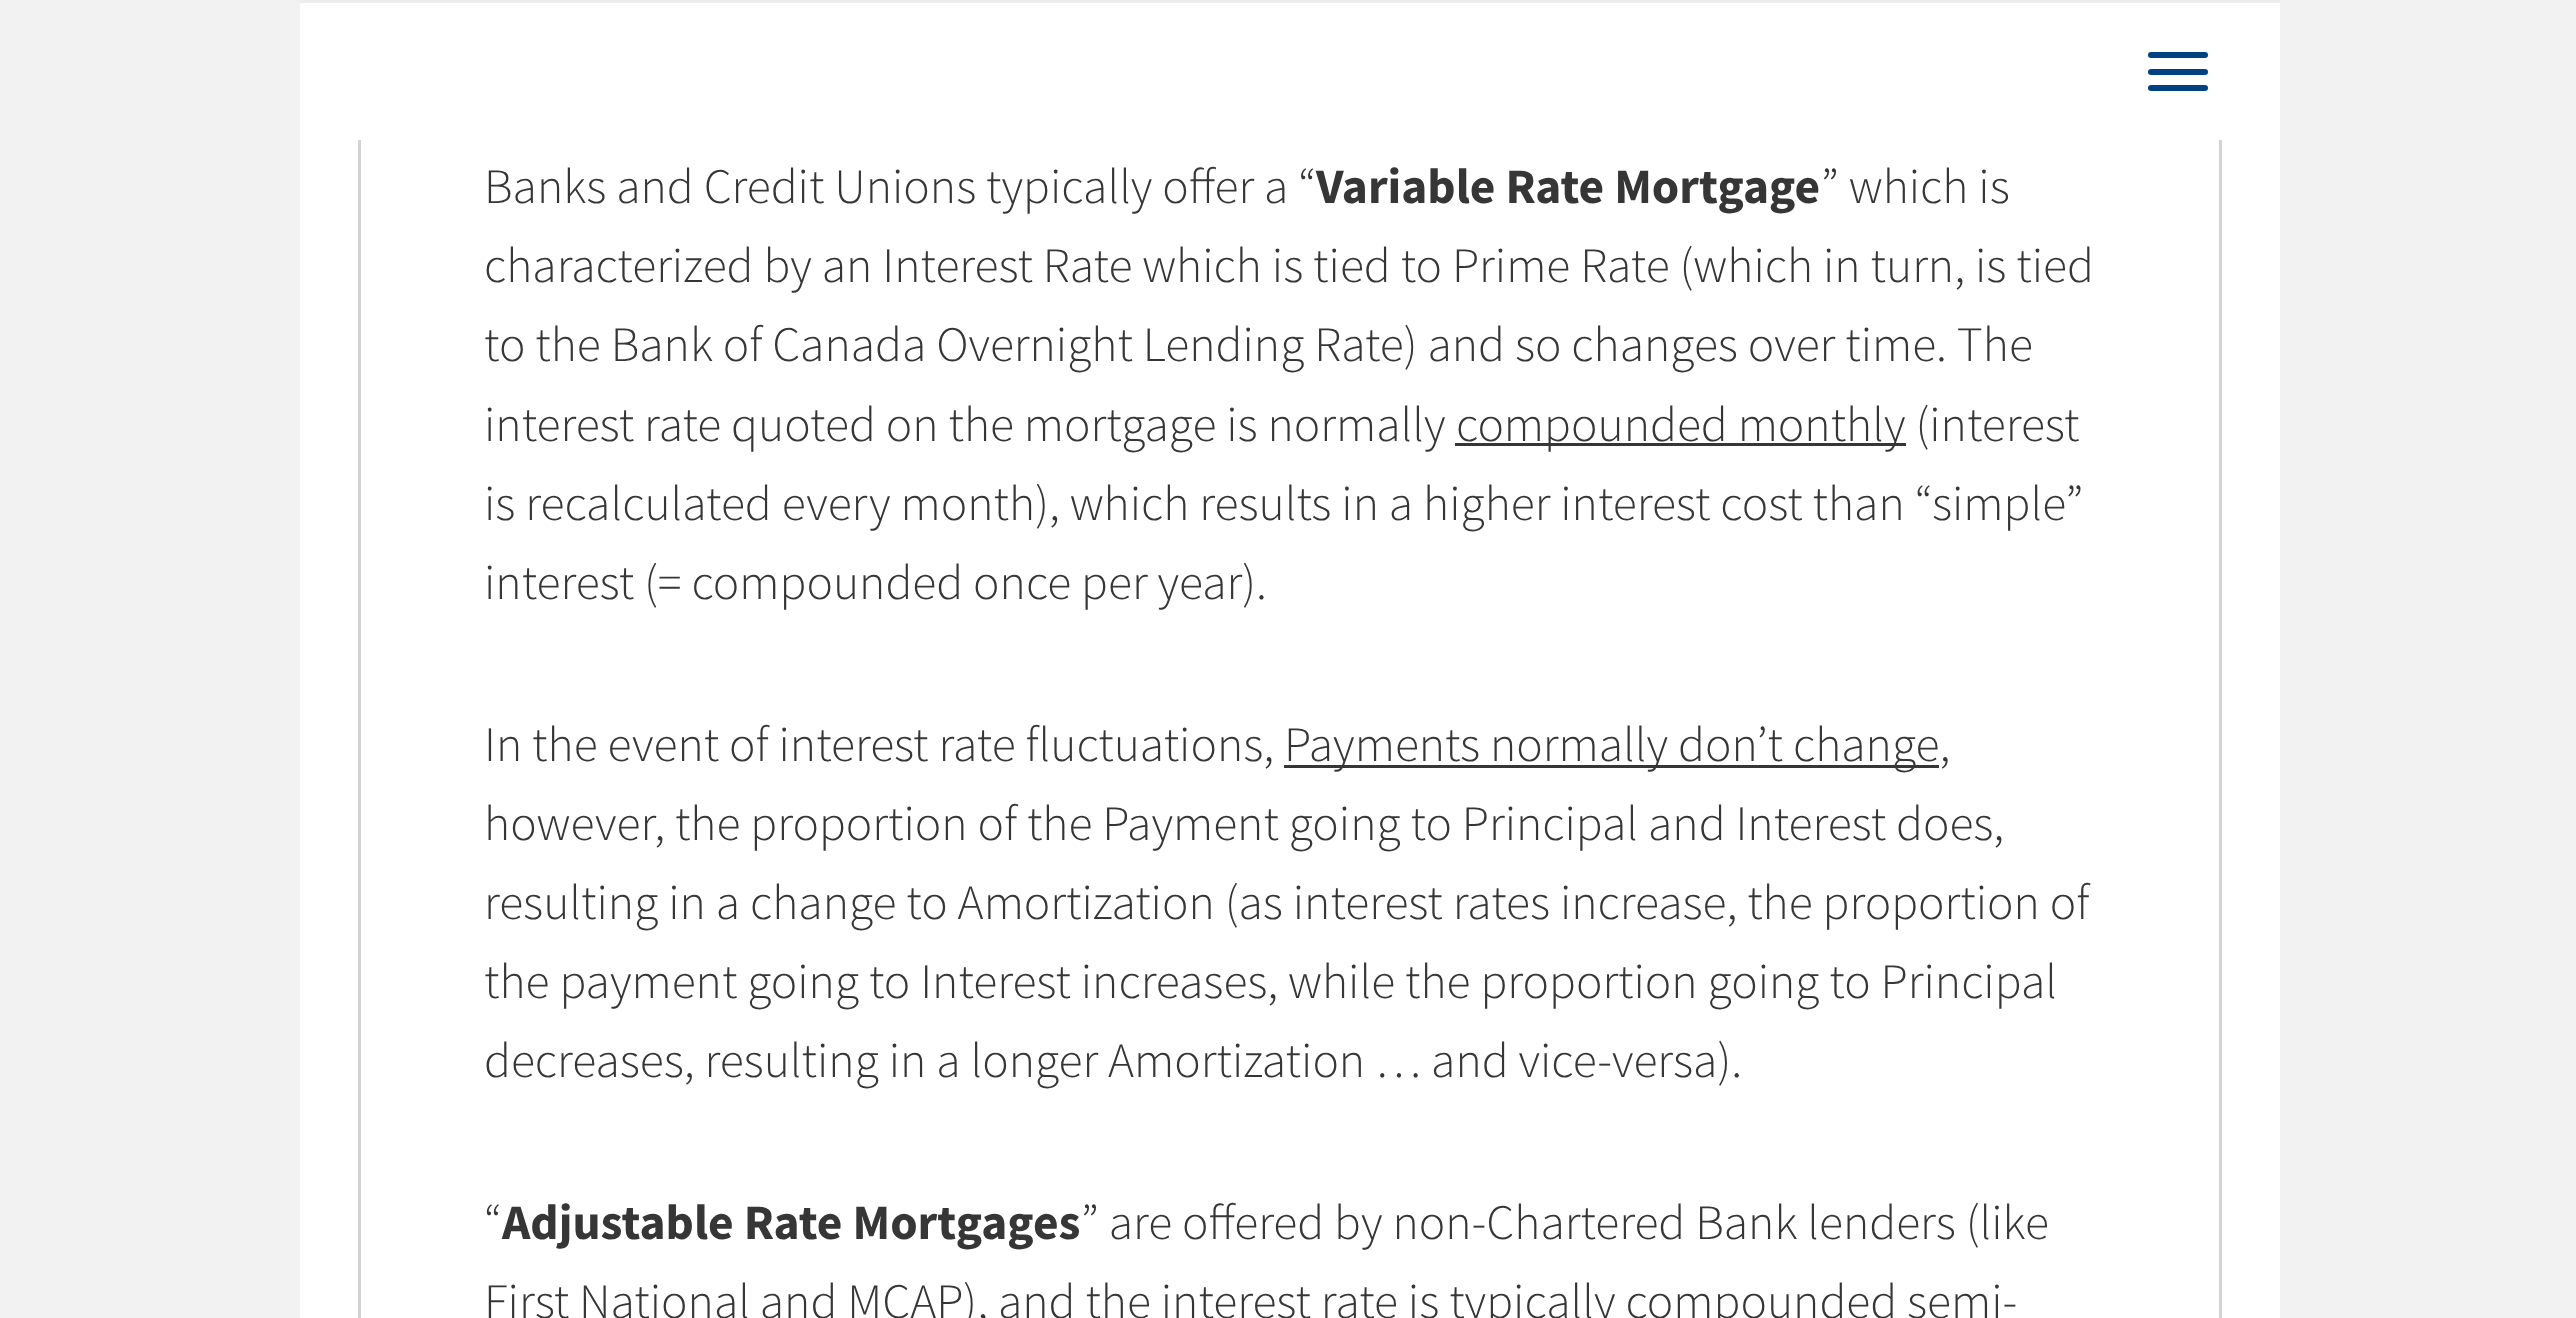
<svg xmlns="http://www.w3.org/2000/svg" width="2576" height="1318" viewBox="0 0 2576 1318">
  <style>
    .t1 { font: 300 49.5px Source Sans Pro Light; fill: #363636; }
    .t2 { font: bold 49.5px Source Sans Pro; fill: #363636; }
  </style>
  <rect width="100%" height="100%" fill="#f3f2f2"/>
  <rect x="300" y="140" width="1980" height="1178" fill="#fff"/>
  <rect x="359.5" y="-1.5" width="1861" height="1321" fill="none" stroke="#d3d3d3" stroke-width="3"/>
  <rect x="300" y="3" width="1980" height="137" fill="#fff"/>
  <rect x="300" y="0" width="1980" height="3" fill="#ededed"/>
  <rect x="2148" y="52" width="60" height="6" rx="3" fill="#004282"/>
  <rect x="2148" y="69" width="60" height="6" rx="3" fill="#004282"/>
  <rect x="2148" y="85" width="60" height="6" rx="3" fill="#004282"/>
  <text x="484" y="203" class="t1">Banks and Credit Unions typically offer a “</text>
  <text x="1316" y="203" class="t2">Variable Rate Mortgage</text>
  <text x="1821" y="203" class="t1">” which is</text>
  <text x="484" y="282" class="t1">characterized by an Interest Rate which is tied to Prime Rate (which in turn, is tied</text>
  <text x="484" y="361" class="t1">to the Bank of Canada Overnight Lending Rate) and so changes over time. The</text>
  <text x="484" y="441" class="t1">interest rate quoted on the mortgage is normally</text>
  <rect x="1455" y="443" width="451" height="3" fill="#363636"/>
  <text x="1456" y="441" class="t1">compounded monthly (interest</text>
  <text x="484" y="520" class="t1">is recalculated every month), which results in a higher interest cost than “simple”</text>
  <text x="484" y="599" class="t1">interest (= compounded once per year).</text>
  <text x="484" y="761" class="t1">In the event of interest rate fluctuations,</text>
  <rect x="1284" y="765" width="655" height="3" fill="#363636"/>
  <text x="1284" y="761" class="t1">Payments normally don’t change,</text>
  <text x="484" y="840" class="t1">however, the proportion of the Payment going to Principal and Interest does,</text>
  <text x="484" y="919" class="t1">resulting in a change to Amortization (as interest rates increase, the proportion of</text>
  <text x="484" y="998" class="t1">the payment going to Interest increases, while the proportion going to Principal</text>
  <text x="484" y="1077" class="t1">decreases, resulting in a longer Amortization … and vice-versa).</text>
  <text x="484" y="1239" class="t1">“</text>
  <text x="502" y="1239" class="t2">Adjustable Rate Mortgages</text>
  <text x="1081" y="1239" class="t1">” are offered by non-Chartered Bank lenders (like</text>
  <text x="484" y="1318" class="t1">First National and MCAP), and the interest rate is typically compounded semi-</text>
</svg>
